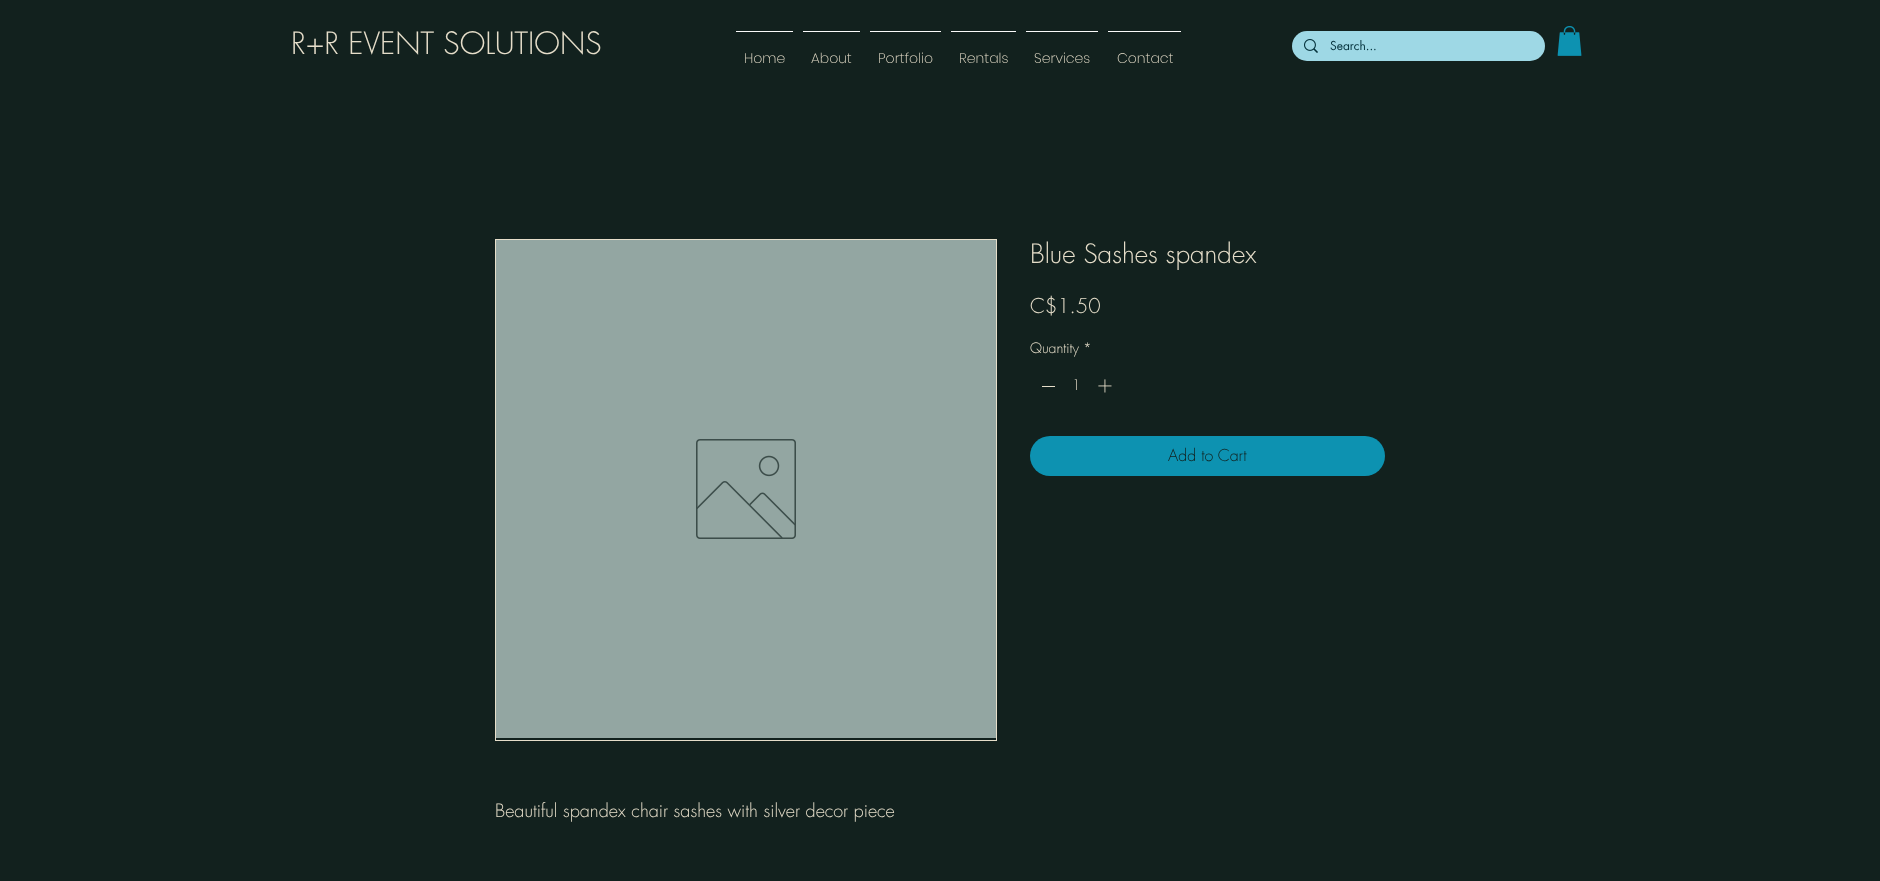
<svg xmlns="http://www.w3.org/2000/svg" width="1880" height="881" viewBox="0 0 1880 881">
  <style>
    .t1 { font: 300 30px futura; fill: #e6deca; }
    .t2 { font: 12px futura; fill: #04313b; }
    .t3 { font: 200 14px Poppins; fill: #e6deca; }
    .t4 { font: 300 26px futura; fill: #e6deca; }
    .t5 { font: 300 20px futura; fill: #e6deca; }
    .t6 { font: 300 14px futura; fill: #e6deca; }
    .t7 { font: 300 16px futura; fill: #12211e; }
    .t8 { font: 300 18px futura; fill: #e6deca; }
  </style>
  <rect width="100%" height="100%" fill="#12211e"/>
  <text x="291" y="54" class="t1">R+R EVENT SOLUTIONS</text>
  <rect x="1292" y="31" width="253" height="30" rx="15" fill="#9ed8e5"/>
  <image x="1304" y="39" width="14" height="14" href="images/1.png"/>
  <text x="1330" y="50" class="t2">Search...</text>
  <image x="1557" y="26" width="25" height="30" href="images/2.png"/>
  <rect x="736" y="31" width="57" height="1" fill="#fafafa"/>
  <text x="744" y="63" class="t3">Home</text>
  <rect x="803" y="31" width="57" height="1" fill="#fafafa"/>
  <text x="811" y="63" class="t3">About</text>
  <rect x="870" y="31" width="71" height="1" fill="#fafafa"/>
  <text x="878" y="63" class="t3">Portfolio</text>
  <rect x="951" y="31" width="65" height="1" fill="#fafafa"/>
  <text x="959" y="63" class="t3">Rentals</text>
  <rect x="1026" y="31" width="72" height="1" fill="#fafafa"/>
  <text x="1034" y="63" class="t3">Services</text>
  <rect x="1108" y="31" width="73" height="1" fill="#fafafa"/>
  <text x="1117" y="63" class="t3">Contact</text>
  <text x="1030" y="263" class="t4">Blue Sashes spandex</text>
  <text x="1030" y="313" class="t5">C$1.50</text>
  <text x="1030" y="353" class="t6">Quantity</text>
  <text x="1083" y="353" class="t6">*</text>
  <rect x="1042" y="386" width="13" height="1" fill="#e6deca"/>
  <text x="1072" y="390" class="t6">1</text>
  <image x="1098" y="379" width="14" height="14" href="images/3.png"/>
  <rect x="1030" y="436" width="355" height="40" rx="20" fill="#0d92b1"/>
  <text x="1168" y="461" class="t7">Add to Cart</text>
  <rect x="495.5" y="239.5" width="501" height="501" fill="none" stroke="#e6deca"/>
  <rect x="496" y="240" width="500" height="498" fill="#93a6a2"/>
  <image x="696" y="439" width="100" height="100" href="images/4.png"/>
  <text x="495" y="817" class="t8">Beautiful spandex chair sashes with silver decor piece</text>
</svg>
